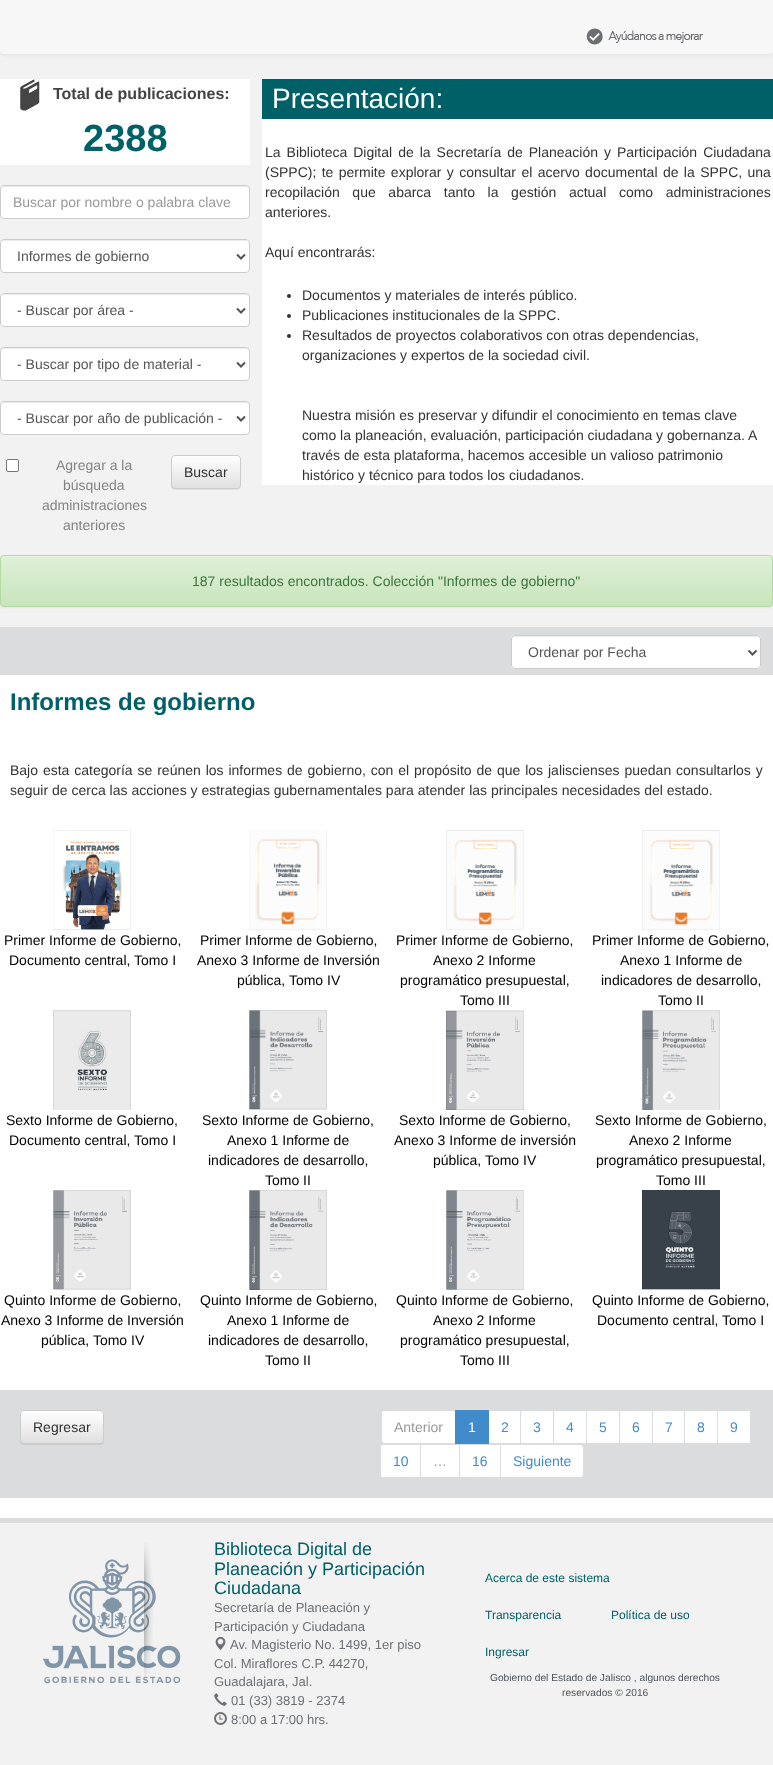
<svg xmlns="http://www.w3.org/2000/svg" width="773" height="1765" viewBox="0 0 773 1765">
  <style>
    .t1 { font: bold 16px Liberation Sans; fill: #434343; }
    .t2 { font: bold 38px Liberation Sans; fill: #006068; }
    .t3 { font: 14px Liberation Sans; fill: #999; }
    .t4 { font: 14px Liberation Sans; fill: #555; }
    .t5 { font: 14px Liberation Sans; fill: #838484; }
    .t6 { font: 14px Liberation Sans; fill: #333; }
    .t7 { font: 28px Liberation Sans; fill: #fff; }
    .t8 { font: 14px Liberation Sans; fill: #3c763d; }
    .t9 { font: bold 24px Liberation Sans; fill: #006068; }
    .t10 { font: 14px Liberation Sans; fill: #000; }
    .t11 { font: 14px Liberation Sans; fill: #fff; }
    .t12 { font: 14px Liberation Sans; fill: #428bca; }
    .t13 { font: 18px Liberation Sans; fill: #006068; }
    .t14 { font: 13px Liberation Sans; fill: #6d7175; }
    .t15 { font: 12px Liberation Sans; fill: #006068; }
    .t16 { font: 10.2px Liberation Sans; fill: #4c535b; }
  </style>
  <defs>
    <clipPath id="clip1"><rect x="171" y="455" width="70" height="34" rx="4"/></clipPath>
    <linearGradient id="g1" gradientUnits="userSpaceOnUse" x1="206" y1="456" x2="206" y2="488"><stop offset="0" stop-color="#fff"/><stop offset="1" stop-color="#e0e0e0"/></linearGradient>
    <clipPath id="clip2"><rect x="0" y="555" width="773" height="52" rx="4"/></clipPath>
    <linearGradient id="g2" gradientUnits="userSpaceOnUse" x1="387" y1="556" x2="387" y2="606"><stop offset="0" stop-color="#dff0d8"/><stop offset="1" stop-color="#c8e5bc"/></linearGradient>
    <clipPath id="clip3"><rect x="20" y="1410" width="84" height="34" rx="4"/></clipPath>
    <linearGradient id="g3" gradientUnits="userSpaceOnUse" x1="62" y1="1411" x2="62" y2="1443"><stop offset="0" stop-color="#fff"/><stop offset="1" stop-color="#e0e0e0"/></linearGradient>
  </defs>
  <rect width="100%" height="100%" fill="#f2f2f2"/>
  <rect x="0" y="-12" width="773" height="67" rx="4" fill="#00000012" filter="blur(2.5px)"/>
  <rect x="0.5" y="-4.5" width="772" height="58" rx="3.5" fill="#f7f7f7" stroke="#f7f7f7"/>
  <image x="586" y="28" width="118" height="17" href="images/1.png"/>
  <rect x="0" y="79" width="250" height="86" fill="#fff"/>
  <image x="20" y="79" width="20" height="32" href="images/2.png"/>
  <text x="53" y="99" class="t1">Total de publicaciones:</text>
  <text x="83" y="151" class="t2">2388</text>
  <rect x="0" y="185" width="250" height="34" rx="4" fill="#fff"/>
  <path d="M4 187H246C248 187 249 188 249 190C249 188 248 186 246 186H4C2 186 1 188 1 190C1 188 2 187 4 187Z" fill="#ececec"/>
  <rect x="0.5" y="185.5" width="249" height="33" rx="3.5" fill="none" stroke="#ccc"/>
  <text x="13" y="207" class="t3">Buscar por nombre o palabra clave</text>
  <rect x="0" y="239" width="250" height="34" rx="4" fill="#fff"/>
  <path d="M4 241H246C248 241 249 242 249 244C249 242 248 240 246 240H4C2 240 1 242 1 244C1 242 2 241 4 241Z" fill="#ececec"/>
  <rect x="0.5" y="239.5" width="249" height="33" rx="3.5" fill="none" stroke="#ccc"/>
  <path d="M237 254.5L241 258.5L245 254.5" fill="none" stroke="#555" stroke-width="2"/>
  <text x="17" y="261" class="t4">Informes de gobierno</text>
  <rect x="0" y="293" width="250" height="34" rx="4" fill="#fff"/>
  <path d="M4 295H246C248 295 249 296 249 298C249 296 248 294 246 294H4C2 294 1 296 1 298C1 296 2 295 4 295Z" fill="#ececec"/>
  <rect x="0.5" y="293.5" width="249" height="33" rx="3.5" fill="none" stroke="#ccc"/>
  <path d="M237 308.5L241 312.5L245 308.5" fill="none" stroke="#555" stroke-width="2"/>
  <text x="17" y="315" class="t4">- Buscar por área -</text>
  <rect x="0" y="347" width="250" height="34" rx="4" fill="#fff"/>
  <path d="M4 349H246C248 349 249 350 249 352C249 350 248 348 246 348H4C2 348 1 350 1 352C1 350 2 349 4 349Z" fill="#ececec"/>
  <rect x="0.5" y="347.5" width="249" height="33" rx="3.5" fill="none" stroke="#ccc"/>
  <path d="M237 362.5L241 366.5L245 362.5" fill="none" stroke="#555" stroke-width="2"/>
  <text x="17" y="369" class="t4">- Buscar por tipo de material -</text>
  <rect x="0" y="401" width="250" height="34" rx="4" fill="#fff"/>
  <path d="M4 403H246C248 403 249 404 249 406C249 404 248 402 246 402H4C2 402 1 404 1 406C1 404 2 403 4 403Z" fill="#ececec"/>
  <rect x="0.5" y="401.5" width="249" height="33" rx="3.5" fill="none" stroke="#ccc"/>
  <path d="M237 416.5L241 420.5L245 416.5" fill="none" stroke="#555" stroke-width="2"/>
  <text x="17" y="423" class="t4">- Buscar por año de publicación -</text>
  <rect x="6.5" y="459.5" width="12" height="12" rx="1.5" fill="#fff" stroke="#767676"/>
  <text x="56" y="470" class="t5">Agregar a la</text>
  <text x="63" y="490" class="t5">búsqueda</text>
  <text x="42" y="510" class="t5">administraciones</text>
  <text x="63" y="530" class="t5">anteriores</text>
  <rect x="171" y="456" width="70" height="34" rx="4" fill="#00000012" filter="blur(0.5px)"/>
  <g clip-path="url(#clip1)">
    <rect x="171" y="456" width="70" height="32" fill="url(#g1)"/>
  </g>
  <rect x="171.5" y="455.5" width="69" height="33" rx="3.5" fill="none" stroke="#ccc"/>
  <text x="184" y="477" class="t6">Buscar</text>
  <rect x="262" y="119" width="511" height="366" fill="#fff"/>
  <rect x="262" y="79" width="511" height="40" fill="#006068"/>
  <text x="272" y="108" class="t7">Presentación:</text>
  <text x="265" y="157" word-spacing="2.1" class="t6">La Biblioteca Digital de la Secretaría de Planeación y Participación Ciudadana</text>
  <text x="265" y="177" word-spacing="1.5" class="t6">(SPPC); te permite explorar y consultar el acervo documental de la SPPC, una</text>
  <text x="265" y="197" word-spacing="8.75" class="t6">recopilación que abarca tanto la gestión actual como administraciones</text>
  <text x="265" y="217" class="t6">anteriores.</text>
  <text x="265" y="257" class="t6">Aquí encontrarás:</text>
  <circle cx="289" cy="296" r="2" fill="#333"/>
  <text x="302" y="300" class="t6">Documentos y materiales de interés público.</text>
  <circle cx="289" cy="316" r="2" fill="#333"/>
  <text x="302" y="320" class="t6">Publicaciones institucionales de la SPPC.</text>
  <circle cx="289" cy="336" r="2" fill="#333"/>
  <text x="302" y="340" class="t6">Resultados de proyectos colaborativos con otras dependencias,</text>
  <text x="302" y="360" class="t6">organizaciones y expertos de la sociedad civil.</text>
  <text x="302" y="420" class="t6">Nuestra misión es preservar y difundir el conocimiento en temas clave</text>
  <text x="302" y="440" class="t6">como la planeación, evaluación, participación ciudadana y gobernanza. A</text>
  <text x="302" y="460" class="t6">través de esta plataforma, hacemos accesible un valioso patrimonio</text>
  <text x="302" y="480" class="t6">histórico y técnico para todos los ciudadanos.</text>
  <rect x="0" y="556" width="773" height="52" rx="4" fill="#0000000d" filter="blur(1px)"/>
  <g clip-path="url(#clip2)">
    <rect x="0" y="556" width="773" height="50" fill="url(#g2)"/>
  </g>
  <path d="M4 557H769C771 557 772 558 772 560C772 558 771 556 769 556H4C2 556 1 558 1 560C1 558 2 557 4 557Z" fill="#e7f4e2"/>
  <rect x="0.5" y="555.5" width="772" height="51" rx="3.5" fill="none" stroke="#b2dba1"/>
  <text x="192" y="586" class="t8">187 resultados encontrados. Colección "Informes de gobierno"</text>
  <rect x="0" y="627" width="773" height="48" fill="#dbdcdd"/>
  <rect x="511" y="635" width="250" height="34" rx="4" fill="#fff"/>
  <path d="M515 637H757C759 637 760 638 760 640C760 638 759 636 757 636H515C513 636 512 638 512 640C512 638 513 637 515 637Z" fill="#ececec"/>
  <rect x="511.5" y="635.5" width="249" height="33" rx="3.5" fill="none" stroke="#ccc"/>
  <path d="M748.5 650.5L752.5 654.5L756.5 650.5" fill="none" stroke="#555" stroke-width="2"/>
  <text x="528" y="657" class="t4">Ordenar por Fecha</text>
  <rect x="0" y="675" width="773" height="843" fill="#fff"/>
  <text x="10" y="710" class="t9">Informes de gobierno</text>
  <text x="10" y="775" word-spacing="1" class="t6">Bajo esta categoría se reúnen los informes de gobierno, con el propósito de que los jaliscienses puedan consultarlos y</text>
  <text x="10" y="795" class="t6">seguir de cerca las acciones y estrategias gubernamentales para atender las principales necesidades del estado.</text>
  <image x="53" y="830" width="78" height="100" href="images/3.png"/>
  <text x="4" y="945" class="t10">Primer Informe de Gobierno,</text>
  <text x="9" y="965" class="t10">Documento central, Tomo I</text>
  <image x="249" y="830" width="78" height="100" href="images/4.png"/>
  <text x="200" y="945" class="t10">Primer Informe de Gobierno,</text>
  <text x="197" y="965" class="t10">Anexo 3 Informe de Inversión</text>
  <text x="237" y="985" class="t10">pública, Tomo IV</text>
  <image x="446" y="830" width="78" height="100" href="images/5.png"/>
  <text x="396" y="945" class="t10">Primer Informe de Gobierno,</text>
  <text x="433" y="965" class="t10">Anexo 2 Informe</text>
  <text x="400" y="985" class="t10">programático presupuestal,</text>
  <text x="460" y="1005" class="t10">Tomo III</text>
  <image x="642" y="830" width="78" height="100" href="images/5.png"/>
  <text x="592" y="945" class="t10">Primer Informe de Gobierno,</text>
  <text x="620" y="965" class="t10">Anexo 1 Informe de</text>
  <text x="601" y="985" class="t10">indicadores de desarrollo,</text>
  <text x="658" y="1005" class="t10">Tomo II</text>
  <image x="53" y="1010" width="78" height="100" href="images/6.png"/>
  <text x="6" y="1125" class="t10">Sexto Informe de Gobierno,</text>
  <text x="9" y="1145" class="t10">Documento central, Tomo I</text>
  <image x="249" y="1010" width="78" height="100" href="images/7.png"/>
  <text x="202" y="1125" class="t10">Sexto Informe de Gobierno,</text>
  <text x="227" y="1145" class="t10">Anexo 1 Informe de</text>
  <text x="208" y="1165" class="t10">indicadores de desarrollo,</text>
  <text x="265" y="1185" class="t10">Tomo II</text>
  <image x="446" y="1010" width="78" height="100" href="images/8.png"/>
  <text x="399" y="1125" class="t10">Sexto Informe de Gobierno,</text>
  <text x="394" y="1145" class="t10">Anexo 3 Informe de inversión</text>
  <text x="433" y="1165" class="t10">pública, Tomo IV</text>
  <image x="642" y="1010" width="78" height="100" href="images/9.png"/>
  <text x="595" y="1125" class="t10">Sexto Informe de Gobierno,</text>
  <text x="629" y="1145" class="t10">Anexo 2 Informe</text>
  <text x="596" y="1165" class="t10">programático presupuestal,</text>
  <text x="656" y="1185" class="t10">Tomo III</text>
  <image x="53" y="1190" width="78" height="100" href="images/10.png"/>
  <text x="4" y="1305" class="t10">Quinto Informe de Gobierno,</text>
  <text x="1" y="1325" class="t10">Anexo 3 Informe de Inversión</text>
  <text x="41" y="1345" class="t10">pública, Tomo IV</text>
  <image x="249" y="1190" width="78" height="100" href="images/11.png"/>
  <text x="200" y="1305" class="t10">Quinto Informe de Gobierno,</text>
  <text x="227" y="1325" class="t10">Anexo 1 Informe de</text>
  <text x="208" y="1345" class="t10">indicadores de desarrollo,</text>
  <text x="265" y="1365" class="t10">Tomo II</text>
  <image x="446" y="1190" width="78" height="100" href="images/12.png"/>
  <text x="396" y="1305" class="t10">Quinto Informe de Gobierno,</text>
  <text x="433" y="1325" class="t10">Anexo 2 Informe</text>
  <text x="400" y="1345" class="t10">programático presupuestal,</text>
  <text x="460" y="1365" class="t10">Tomo III</text>
  <image x="642" y="1190" width="78" height="100" href="images/13.png"/>
  <text x="592" y="1305" class="t10">Quinto Informe de Gobierno,</text>
  <text x="597" y="1325" class="t10">Documento central, Tomo I</text>
  <rect x="0" y="1390" width="773" height="108" fill="#dbdcdd"/>
  <rect x="20" y="1411" width="84" height="34" rx="4" fill="#00000012" filter="blur(0.5px)"/>
  <g clip-path="url(#clip3)">
    <rect x="20" y="1411" width="84" height="32" fill="url(#g3)"/>
  </g>
  <rect x="20.5" y="1410.5" width="83" height="33" rx="3.5" fill="none" stroke="#ccc"/>
  <text x="33" y="1432" class="t6">Regresar</text>
  <path d="M385 1410.5H455.5V1443.5H385C383 1443.5 381.5 1442 381.5 1440V1414C381.5 1412 383 1410.5 385 1410.5Z" fill="#fff" stroke="#ddd"/>
  <text x="394" y="1432" class="t3">Anterior</text>
  <rect x="455" y="1410" width="34" height="34" fill="#428bca"/>
  <text x="468" y="1432" class="t11">1</text>
  <rect x="489" y="1411" width="31" height="32" fill="#fff"/>
  <text x="501" y="1432" class="t12">2</text>
  <rect x="521" y="1411" width="32" height="32" fill="#fff"/>
  <text x="533" y="1432" class="t12">3</text>
  <rect x="554" y="1411" width="32" height="32" fill="#fff"/>
  <text x="566" y="1432" class="t12">4</text>
  <rect x="587" y="1411" width="32" height="32" fill="#fff"/>
  <text x="599" y="1432" class="t12">5</text>
  <rect x="620" y="1411" width="32" height="32" fill="#fff"/>
  <text x="632" y="1432" class="t12">6</text>
  <rect x="653" y="1411" width="31" height="32" fill="#fff"/>
  <text x="665" y="1432" class="t12">7</text>
  <rect x="685" y="1411" width="32" height="32" fill="#fff"/>
  <text x="697" y="1432" class="t12">8</text>
  <rect x="718" y="1411" width="32" height="32" fill="#fff"/>
  <text x="730" y="1432" class="t12">9</text>
  <rect x="381" y="1445" width="39" height="32" fill="#fff"/>
  <text x="393" y="1466" class="t12">10</text>
  <rect x="421" y="1445" width="38" height="32" fill="#fff"/>
  <text x="433" y="1466" class="t3">…</text>
  <rect x="460" y="1445" width="40" height="32" fill="#fff"/>
  <text x="472" y="1466" class="t12">16</text>
  <path d="M500.5 1444.5H580C582 1444.5 583.5 1446 583.5 1448V1474C583.5 1476 582 1477.5 580 1477.5H500.5Z" fill="#fff" stroke="#ddd"/>
  <text x="513" y="1466" class="t12">Siguiente</text>
  <rect x="0" y="1518" width="773" height="5" fill="#ddd"/>
  <image x="42" y="1559" width="139" height="125" href="images/18.png"/>
  <image x="144" y="1543" width="9" height="136" href="images/14.png"/>
  <text x="214" y="1555" class="t13">Biblioteca Digital de</text>
  <text x="214" y="1575" class="t13">Planeación y Participación</text>
  <text x="214" y="1594" class="t13">Ciudadana</text>
  <text x="214" y="1612" class="t14">Secretaría de Planeación y</text>
  <text x="214" y="1631" class="t14">Participación y Ciudadana</text>
  <image x="215" y="1636" width="11" height="14" href="images/15.png"/>
  <text x="230" y="1649" class="t14">Av. Magisterio No. 1499, 1er piso</text>
  <text x="214" y="1668" class="t14">Col. Miraflores C.P. 44270,</text>
  <text x="214" y="1686" class="t14">Guadalajara, Jal.</text>
  <image x="214" y="1693" width="13" height="13" href="images/16.png"/>
  <text x="231" y="1705" class="t14">01 (33) 3819 - 2374</text>
  <image x="214" y="1712" width="13" height="13" href="images/17.png"/>
  <text x="231" y="1724" class="t14">8:00 a 17:00 hrs.</text>
  <text x="485" y="1582" class="t15">Acerca de este sistema</text>
  <text x="485" y="1619" class="t15">Transparencia</text>
  <text x="611" y="1619" class="t15">Política de uso</text>
  <text x="485" y="1656" class="t15">Ingresar</text>
  <text x="490" y="1681" class="t16">Gobierno del Estado de Jalisco , algunos derechos</text>
  <text x="562" y="1696" class="t16">reservados © 2016</text>
</svg>
